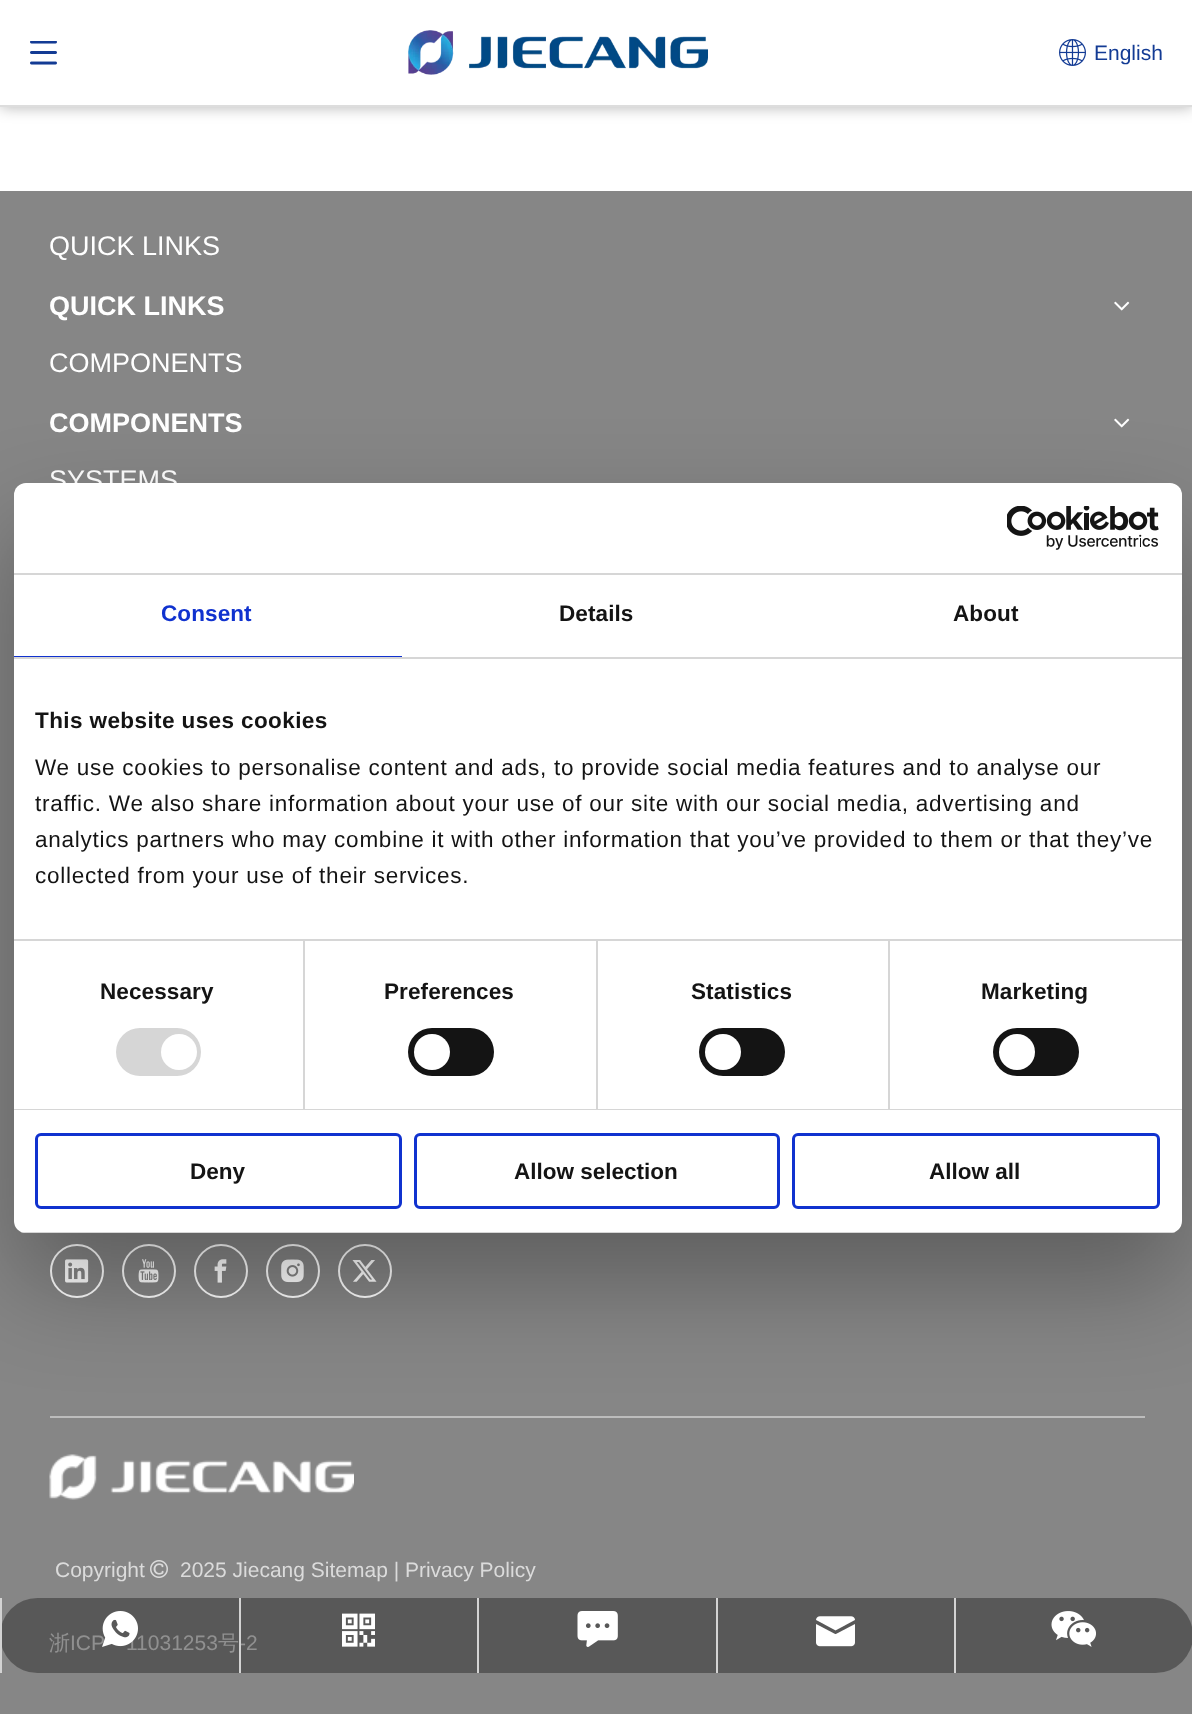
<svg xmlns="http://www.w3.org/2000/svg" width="1192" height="1714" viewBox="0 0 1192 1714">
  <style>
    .t1 { font: 21px Liberation Sans; fill: #133b94; }
    .t2 { font: 27px Liberation Sans; fill: #fff; }
    .t3 { font: bold 27px Liberation Sans; fill: #fff; }
    .t4 { font: 500 21px WenQuanYi Zen Hei; fill: #dbdbdb; }
    .t5 { font: 21px Liberation Sans; fill: #dbdbdb; }
    .t6 { font: bold 22.5px Liberation Sans; letter-spacing: 0.1px; fill: #1032cf; }
    .t7 { font: bold 22.5px Liberation Sans; letter-spacing: 0.1px; fill: #141414; }
    .t8 { font: bold 22.5px Liberation Sans; letter-spacing: 0.4px; fill: #141414; }
    .t9 { font: 22.5px Liberation Sans; letter-spacing: 0.75px; fill: #141414; }
    .t10 { font: bold 22.5px Liberation Sans; fill: #141414; }
  </style>
  <defs>
    <clipPath id="clip1"><rect x="14" y="483" width="1168" height="750" rx="12"/></clipPath>
  </defs>
  <rect width="100%" height="100%" fill="#fff"/>
  <rect x="0" y="0" width="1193" height="107" fill="#0000004d" filter="blur(7.5px)"/>
  <rect x="0" y="0" width="1192" height="105" fill="#fff"/>
  <rect x="0" y="105" width="1192" height="2" fill="#ddd"/>
  <image x="30" y="41" width="27" height="24" href="images/1.png"/>
  <image x="408" y="30" width="300" height="45" href="images/2.png"/>
  <image x="1059" y="39" width="27" height="27" href="images/3.png"/>
  <text x="1094" y="60" class="t1">English</text>
  <rect x="0" y="191" width="1192" height="1523" fill="#868686"/>
  <text x="49" y="255" class="t2">QUICK LINKS</text>
  <text x="49" y="315" class="t3">QUICK LINKS</text>
  <image x="1114" y="301" width="16" height="10" href="images/4.png"/>
  <text x="49" y="372" class="t2">COMPONENTS</text>
  <text x="49" y="432" class="t3">COMPONENTS</text>
  <image x="1114" y="418" width="16" height="10" href="images/4.png"/>
  <text x="49" y="1650" class="t4">浙</text>
  <text x="70" y="1650" class="t5">ICP</text>
  <text x="126" y="1650" class="t5">11031253</text>
  <text x="218" y="1650" class="t4">号</text>
  <text x="239" y="1650" class="t5">-2</text>
  <rect x="0" y="1598" width="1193" height="75" rx="37.5" fill="#00000057"/>
  <rect x="0" y="1598" width="2" height="75" fill="#d3d3d3"/>
  <image x="102" y="1611" width="36" height="36" href="images/5.png"/>
  <rect x="239" y="1598" width="2" height="75" fill="#d3d3d3"/>
  <image x="342" y="1613" width="33" height="34" href="images/6.png"/>
  <rect x="477" y="1598" width="2" height="75" fill="#d3d3d3"/>
  <image x="577" y="1611" width="41" height="36" href="images/7.png"/>
  <rect x="716" y="1598" width="2" height="75" fill="#d3d3d3"/>
  <image x="816" y="1616" width="39" height="31" href="images/8.png"/>
  <rect x="954" y="1598" width="2" height="75" fill="#d3d3d3"/>
  <image x="1051" y="1611" width="45" height="36" href="images/9.png"/>
  <text x="49" y="489" class="t2">SYSTEMS</text>
  <circle cx="77" cy="1271" r="26" fill="none" stroke="#fff" stroke-width="2"/>
  <image x="65" y="1259" width="24" height="24" href="images/10.png"/>
  <circle cx="149" cy="1271" r="26" fill="none" stroke="#fff" stroke-width="2"/>
  <image x="138" y="1259" width="21" height="24" href="images/11.png"/>
  <circle cx="221" cy="1271" r="26" fill="none" stroke="#fff" stroke-width="2"/>
  <image x="214" y="1259" width="13" height="24" href="images/12.png"/>
  <circle cx="293" cy="1271" r="26" fill="none" stroke="#fff" stroke-width="2"/>
  <image x="281" y="1259" width="23" height="24" href="images/13.png"/>
  <circle cx="365" cy="1271" r="26" fill="none" stroke="#fff" stroke-width="2"/>
  <image x="352" y="1260" width="25" height="22" href="images/14.png"/>
  <rect x="50" y="1416" width="1095" height="2" fill="#bcbcbc"/>
  <image x="49" y="1454" width="305" height="46" href="images/15.png"/>
  <text x="55" y="1577" class="t5">Copyright</text>
  <image x="150" y="1560" width="18" height="18" href="images/16.png"/>
  <text x="180" y="1577" class="t5">2025 Jiecang Sitemap | Privacy Policy</text>
  <rect x="14" y="531" width="1168" height="750" rx="12" fill="#0000004d" filter="blur(51px)"/>
  <rect x="14" y="483" width="1168" height="750" rx="12" fill="#fff"/>
  <rect x="14" y="573" width="1168" height="2" fill="#d6d6d6"/>
  <image x="1007" y="506" width="152" height="44" href="images/17.png"/>
  <rect x="14" y="657" width="1168" height="2" fill="#d6d6d6"/>
  <rect x="14" y="656" width="388" height="1" fill="#1032cf"/>
  <text x="161" y="621" class="t6">Consent</text>
  <text x="559" y="621" class="t7">Details</text>
  <text x="953" y="621" class="t7">About</text>
  <rect x="14" y="939" width="1168" height="2" fill="#d6d6d6"/>
  <text x="35" y="728" class="t8">This website uses cookies</text>
  <text x="35" y="775" class="t9">We use cookies to personalise content and ads, to provide social media features and to analyse our</text>
  <text x="35" y="811" class="t9">traffic. We also share information about your use of our site with our social media, advertising and</text>
  <text x="35" y="847" class="t9">analytics partners who may combine it with other information that you’ve provided to them or that they’ve</text>
  <text x="35" y="883" class="t9">collected from your use of their services.</text>
  <rect x="14" y="1109" width="1168" height="1" fill="#d6d6d6"/>
  <rect x="303" y="941" width="2" height="168" fill="#d6d6d6"/>
  <text x="100" y="999" class="t7">Necessary</text>
  <rect x="116" y="1028" width="85" height="48" rx="24" fill="#d6d6d6"/>
  <circle cx="179" cy="1052" r="18" fill="#fff"/>
  <rect x="596" y="941" width="2" height="168" fill="#d6d6d6"/>
  <text x="384" y="999" class="t7">Preferences</text>
  <rect x="408" y="1028" width="86" height="48" rx="24" fill="#141414"/>
  <circle cx="432" cy="1052" r="18" fill="#fff"/>
  <rect x="888" y="941" width="2" height="168" fill="#d6d6d6"/>
  <text x="691" y="999" class="t7">Statistics</text>
  <rect x="699" y="1028" width="86" height="48" rx="24" fill="#141414"/>
  <circle cx="723" cy="1052" r="18" fill="#fff"/>
  <text x="981" y="999" class="t7">Marketing</text>
  <rect x="993" y="1028" width="86" height="48" rx="24" fill="#141414"/>
  <circle cx="1017" cy="1052" r="18" fill="#fff"/>
  <g clip-path="url(#clip1)">
    <rect x="14" y="1232" width="1168" height="1" fill="#d6d6d6"/>
  </g>
  <rect x="36.5" y="1134.5" width="364" height="73" rx="4.5" fill="none" stroke="#1032cf" stroke-width="3"/>
  <text x="190" y="1179" class="t10">Deny</text>
  <rect x="415.5" y="1134.5" width="363" height="73" rx="4.5" fill="none" stroke="#1032cf" stroke-width="3"/>
  <text x="514" y="1179" class="t10">Allow selection</text>
  <rect x="793.5" y="1134.5" width="365" height="73" rx="4.5" fill="none" stroke="#1032cf" stroke-width="3"/>
  <text x="929" y="1179" class="t10">Allow all</text>
</svg>
